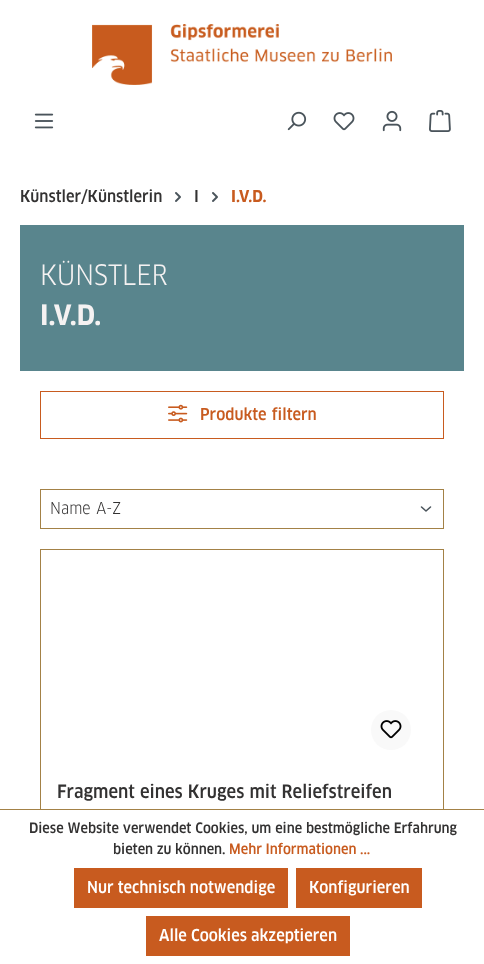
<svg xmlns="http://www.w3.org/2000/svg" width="484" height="964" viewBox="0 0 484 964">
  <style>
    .t1 { font: 500 16px 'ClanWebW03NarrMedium'; fill: #333232; }
    .t2 { font: bold 16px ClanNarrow; fill: #c85b1f; }
    .t3 { font: 27.5px 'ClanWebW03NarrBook'; fill: #f5f2f2; }
    .t4 { font: bold 27.5px ClanNarrow; fill: #f5f2f2; }
    .t5 { font: 500 16px 'ClanWebW03NarrMedium'; fill: #c85b1f; }
    .t6 { font: 16px 'ClanWebW03NarrBook'; fill: #333232; }
    .t7 { font: 500 18px 'ClanWebW03NarrMedium'; fill: #333232; }
    .t8 { font: 500 14px 'ClanWebW03NarrMedium'; fill: #333232; }
    .t9 { font: 500 14px 'ClanWebW03NarrMedium'; fill: #c85b1f; }
    .t10 { font: 500 16px 'ClanWebW03NarrMedium'; fill: #fff; }
  </style>
  <rect width="100%" height="100%" fill="#fff"/>
  <image x="92" y="24" width="300" height="61" href="images/1.png"/>
  <image x="34" y="113" width="20" height="16" href="images/2.png"/>
  <image x="287" y="111" width="20" height="20" href="images/3.png"/>
  <image x="333" y="112" width="22" height="19" href="images/4.png"/>
  <image x="382" y="110" width="20" height="22" href="images/5.png"/>
  <image x="429" y="110" width="22" height="22" href="images/6.png"/>
  <text x="20" y="202" class="t1">Künstler/Künstlerin</text>
  <image x="175" y="192" width="6" height="10" href="images/7.png"/>
  <text x="194" y="202" class="t1">I</text>
  <image x="212" y="192" width="6" height="10" href="images/7.png"/>
  <text x="231" y="202" class="t2">I.V.D.</text>
  <rect x="20" y="225" width="444" height="146" fill="#59858d"/>
  <text x="40" y="285" class="t3">KÜNSTLER</text>
  <text x="40" y="325" class="t4">I.V.D.</text>
  <rect x="40.5" y="391.5" width="403" height="47" fill="none" stroke="#c85b1f"/>
  <image x="168" y="404" width="20" height="19" href="images/8.png"/>
  <text x="200" y="420" word-spacing="1" class="t5">Produkte filtern</text>
  <path d="M421.5 507L426 511L430.5 507" fill="none" stroke="#4a545b" stroke-width="1.5" stroke-linecap="round" stroke-linejoin="round"/>
  <rect x="40.5" y="489.5" width="403" height="39" fill="none" stroke="#a38146"/>
  <text x="50" y="514" word-spacing="1" class="t6">Name A-Z</text>
  <rect x="40.5" y="549.5" width="403" height="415" fill="none" stroke="#a38146"/>
  <circle cx="391" cy="730" r="20" fill="#f9f9f9"/>
  <image x="380" y="720" width="22" height="19" href="images/9.png"/>
  <text x="57" y="798" word-spacing="0.5" class="t7">Fragment eines Kruges mit Reliefstreifen</text>
  <rect x="40" y="810" width="404" height="154" fill="#fff"/>
  <rect x="0" y="809" width="484" height="1" fill="#a38146"/>
  <text x="29" y="833" word-spacing="0.25" class="t8">Diese Website verwendet Cookies, um eine bestmögliche Erfahrung</text>
  <text x="113" y="854" class="t8">bieten zu können.</text>
  <text x="229" y="854" class="t9">Mehr Informationen ...</text>
  <rect x="74" y="868" width="214" height="40" fill="#c85b1f"/>
  <text x="87" y="893" class="t10">Nur technisch notwendige</text>
  <rect x="296" y="868" width="126" height="40" fill="#c85b1f"/>
  <text x="309" y="893" class="t10">Konfigurieren</text>
  <rect x="146" y="916" width="204" height="40" fill="#c85b1f"/>
  <text x="159" y="941" class="t10">Alle Cookies akzeptieren</text>
</svg>
